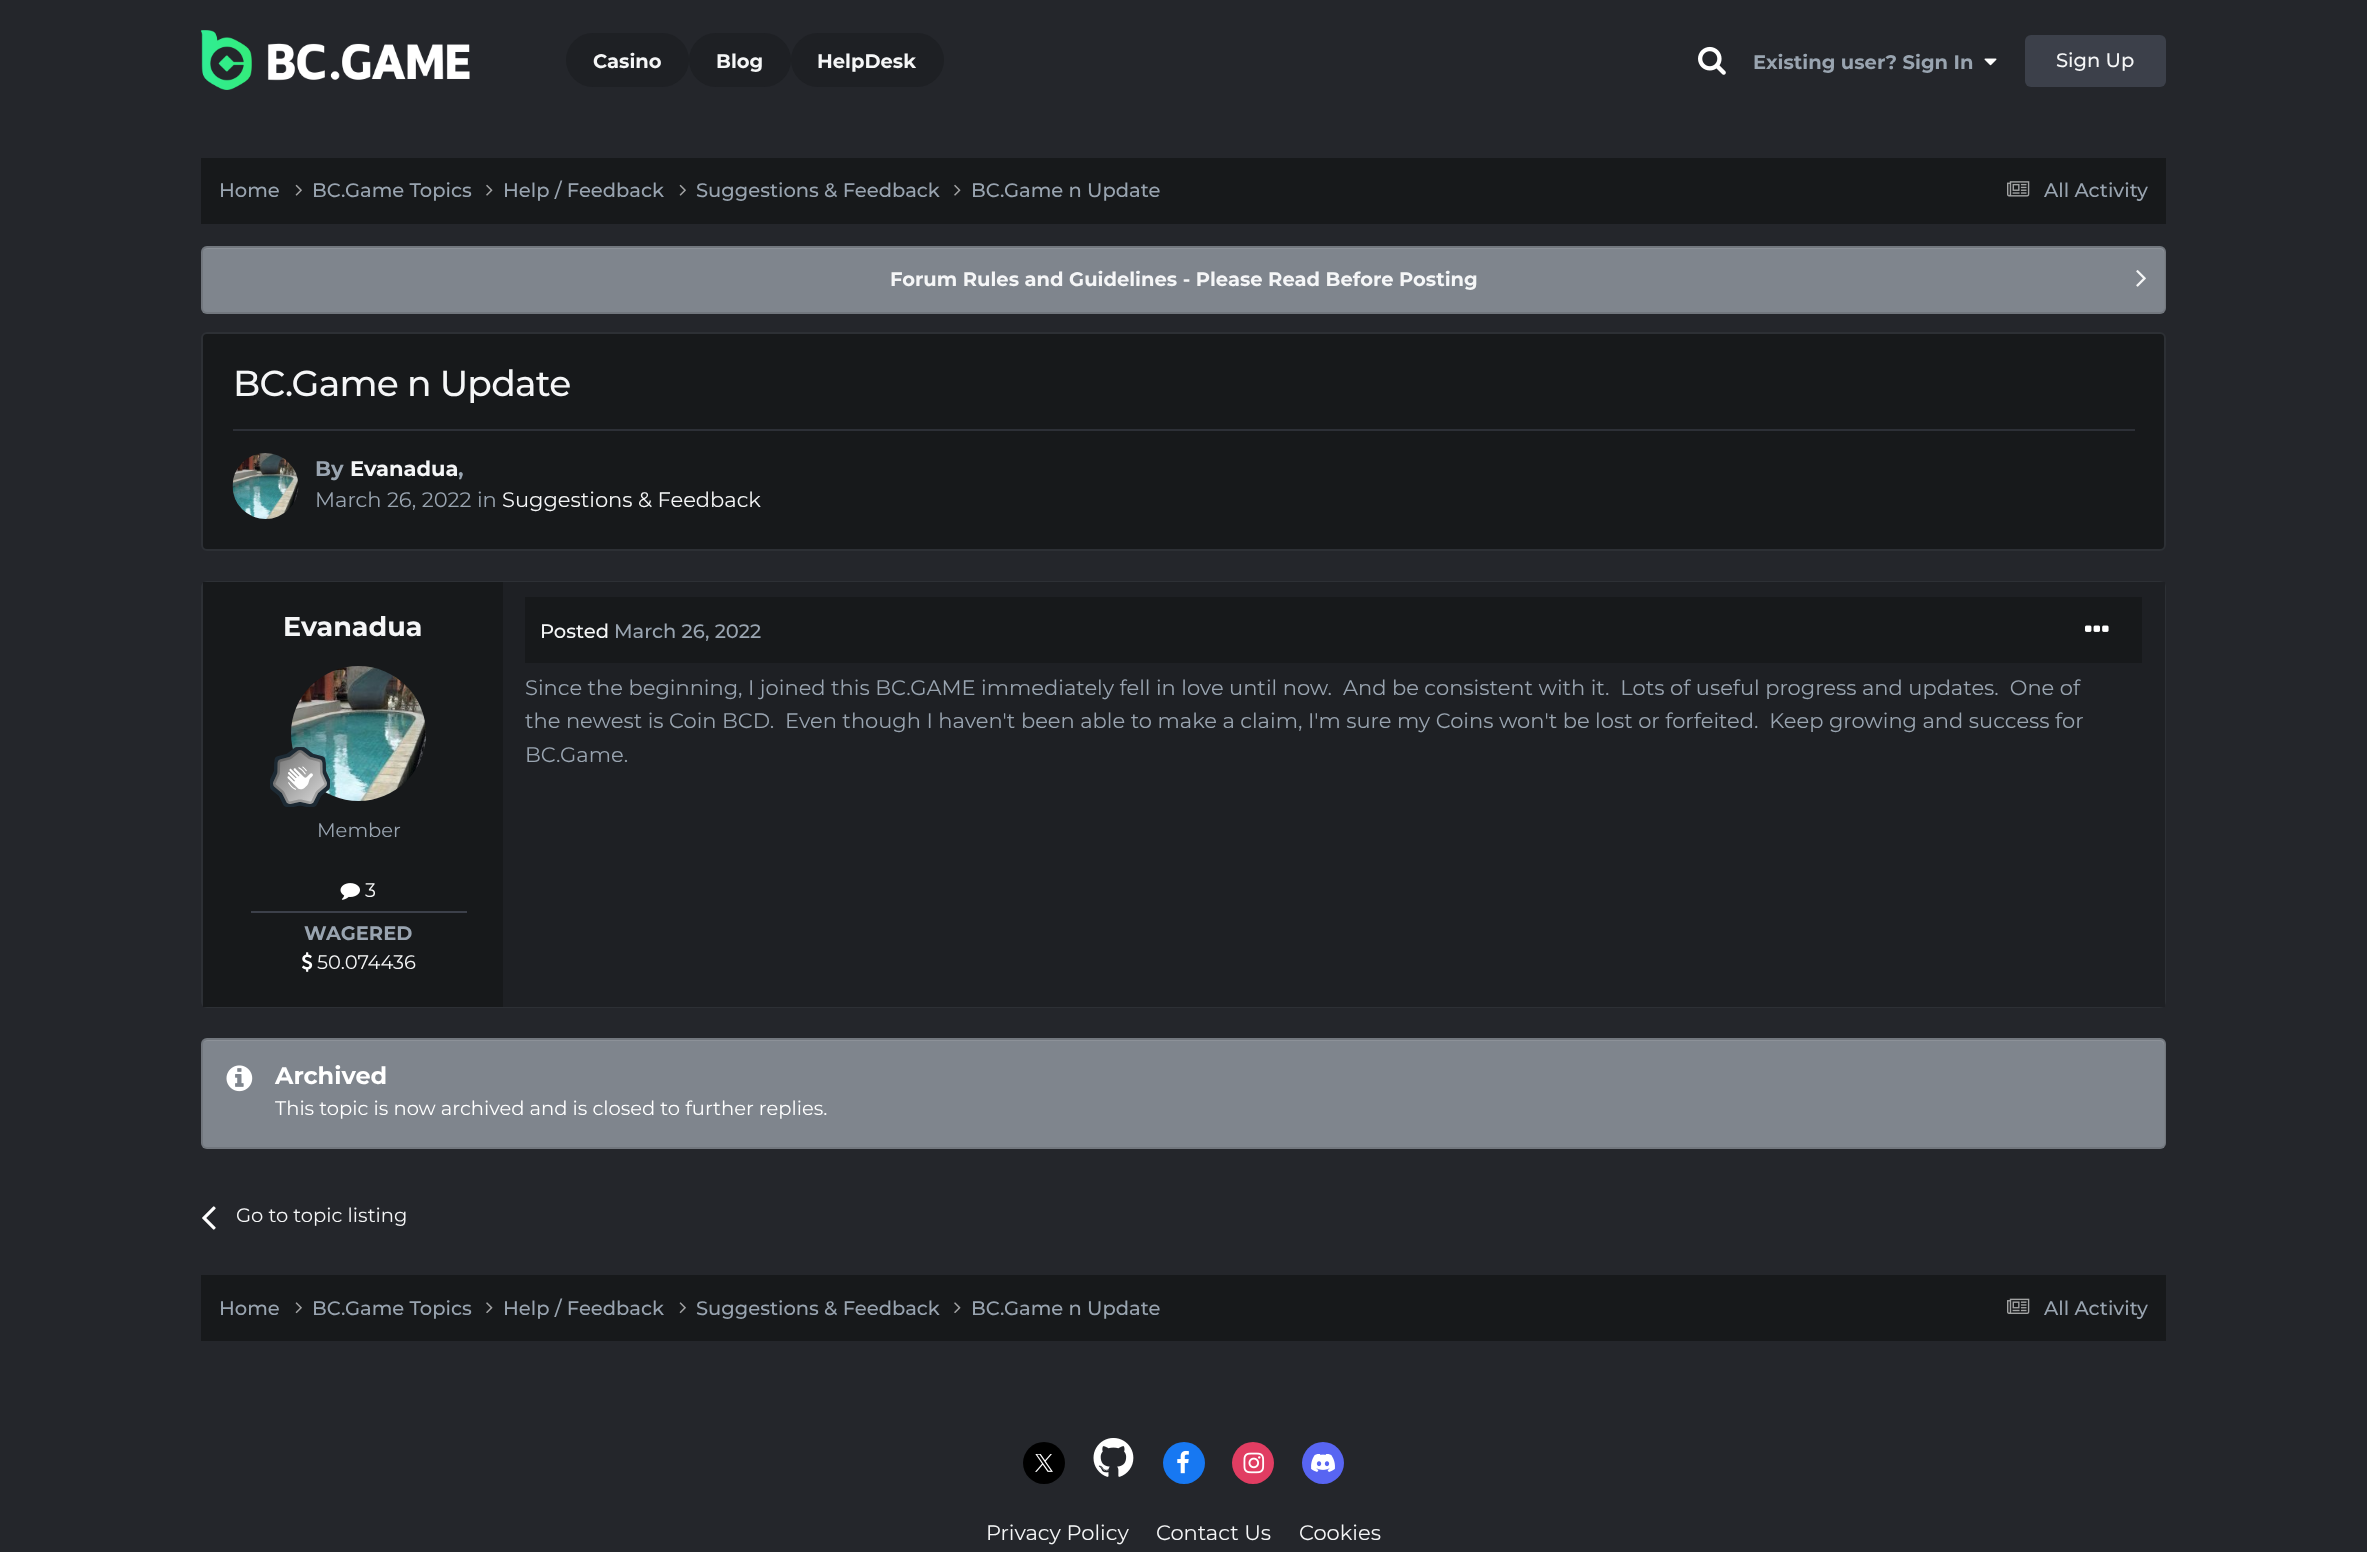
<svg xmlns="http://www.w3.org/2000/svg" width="2367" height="1552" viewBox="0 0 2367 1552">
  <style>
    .t1 { font: bold 19.5px Montserrat; fill: #f5f6f7; }
    .t2 { font: bold 19.5px Montserrat; fill: #99a4b0; }
    .t3 { font: 500 19.5px Montserrat; fill: #f5f6f7; }
    .t4 { font: 500 19.5px Montserrat; fill: #99a4b0; }
    .t5 { font: 500 36px Montserrat; letter-spacing: -0.75px; fill: #f5f6f7; }
    .t6 { font: bold 21px Montserrat; fill: #99a4b0; }
    .t7 { font: bold 21px Montserrat; fill: #f5f6f7; }
    .t8 { font: 21px Montserrat; fill: #99a4b0; }
    .t9 { font: 21px Montserrat; fill: #f5f6f7; }
    .t10 { font: bold 27px Montserrat; fill: #f5f6f7; }
    .t11 { font: 19.5px Montserrat; fill: #99a4b0; }
    .t12 { font: 19.5px Montserrat; fill: #f5f6f7; }
    .t13 { font: bold 24px Montserrat; fill: #fff; }
    .t14 { font: 19.5px Montserrat; fill: #fff; }
  </style>
  <rect width="100%" height="100%" fill="#24262b"/>
  <image x="201" y="30" width="269" height="60" href="images/1.png"/>
  <rect x="566" y="33" width="123" height="54" rx="27" fill="#1e2024"/>
  <text x="593" y="68" class="t1">Casino</text>
  <rect x="689" y="33" width="102" height="54" rx="27" fill="#1e2024"/>
  <text x="716" y="68" class="t1">Blog</text>
  <rect x="791" y="33" width="153" height="54" rx="27" fill="#1e2024"/>
  <text x="817" y="68" class="t1">HelpDesk</text>
  <image x="1698" y="46" width="28" height="29" href="images/2.png"/>
  <text x="1753" y="69" class="t2">Existing user? Sign In</text>
  <image x="1984" y="58" width="13" height="8" href="images/3.png"/>
  <rect x="2025" y="35" width="141" height="52" rx="6" fill="#3c404a"/>
  <text x="2056" y="67" class="t3">Sign Up</text>
  <rect x="201" y="158" width="1965" height="66" fill="#17191b"/>
  <text x="219" y="197" class="t4">Home</text>
  <image x="295" y="184" width="7" height="12" href="images/4.png"/>
  <text x="312" y="197" class="t4">BC.Game Topics</text>
  <image x="486" y="184" width="7" height="12" href="images/5.png"/>
  <text x="503" y="197" class="t4">Help / Feedback</text>
  <image x="679" y="184" width="7" height="12" href="images/4.png"/>
  <text x="696" y="197" class="t4">Suggestions &amp; Feedback</text>
  <image x="954" y="184" width="7" height="12" href="images/5.png"/>
  <text x="971" y="197" class="t4">BC.Game n Update</text>
  <image x="2007" y="181" width="23" height="16" href="images/6.png"/>
  <text x="2044" y="197" class="t4">All Activity</text>
  <rect x="201" y="246" width="1965" height="68" rx="6" fill="#7f858d"/>
  <path d="M207 249H2160C2162 249 2164 251 2164 254V310C2165 309 2165 308 2165 307V253C2165 250 2163 248 2160 248H208C206 248 205 249 204 250Z" fill="#8c9198"/>
  <rect x="202" y="247" width="1963" height="66" rx="5" fill="none" stroke="#0000001a" stroke-width="2"/>
  <text x="890" y="286" class="t1">Forum Rules and Guidelines - Please Read Before Posting</text>
  <image x="2136" y="270" width="10" height="17" href="images/7.png"/>
  <rect x="202" y="333" width="1963" height="217" rx="5" fill="#17191b" stroke="#2d3035" stroke-width="2"/>
  <text x="233" y="396" class="t5">BC.Game n Update</text>
  <rect x="233" y="429" width="1902" height="2" fill="#2d3037"/>
  <image x="232" y="453" width="67" height="66" href="images/8.png"/>
  <text x="315" y="476" class="t6">By</text>
  <text x="350" y="476" class="t7">Evanadua</text>
  <text x="458" y="476" class="t6">,</text>
  <text x="315" y="507" class="t8">March 26, 2022 in</text>
  <text x="502" y="507" class="t9">Suggestions &amp; Feedback</text>
  <rect x="202" y="582" width="1963" height="425" rx="5" fill="none" stroke="#2d3035" stroke-width="2"/>
  <rect x="203" y="582" width="300" height="425" fill="#17191b"/>
  <text x="283" y="636" class="t10">Evanadua</text>
  <image x="291" y="666" width="135" height="135" href="images/9.png"/>
  <image x="270" y="747" width="60" height="60" href="images/10.png"/>
  <text x="317" y="837" class="t11">Member</text>
  <image x="340" y="883" width="20" height="17" href="images/11.png"/>
  <text x="365" y="897" class="t12">3</text>
  <rect x="251" y="911" width="216" height="2" fill="#3c404a"/>
  <text x="304" y="940" class="t2">WAGERED</text>
  <image x="302" y="952" width="11" height="20" href="images/12.png"/>
  <text x="317" y="969" class="t12">50.074436</text>
  <rect x="503" y="582" width="1662" height="425" fill="#1e2024"/>
  <rect x="525" y="597" width="1617" height="66" fill="#17191b"/>
  <text x="540" y="638" class="t3">Posted</text>
  <text x="614" y="638" class="t4">March 26, 2022</text>
  <image x="2085" y="625" width="24" height="7" href="images/13.png"/>
  <text x="525" y="695" class="t8" xml:space="preserve">Since the beginning, I joined this BC.GAME immediately fell in love until now.  And be consistent with it.  Lots of useful progress and updates.  One of</text>
  <text x="525" y="728" class="t8" xml:space="preserve">the newest is Coin BCD.  Even though I haven't been able to make a claim, I'm sure my Coins won't be lost or forfeited.  Keep growing and success for</text>
  <text x="525" y="762" class="t8">BC.Game.</text>
  <rect x="201" y="1038" width="1965" height="111" rx="6" fill="#7f858d"/>
  <path d="M207 1041H2160C2162 1041 2164 1043 2164 1046V1144L2163 1147C2164 1146 2165 1144 2165 1143V1045C2165 1042 2163 1040 2160 1040H208C206 1040 205 1041 204 1042Z" fill="#8c9198"/>
  <rect x="202" y="1039" width="1963" height="109" rx="5" fill="none" stroke="#0000001a" stroke-width="2"/>
  <image x="226" y="1065" width="27" height="27" href="images/14.png"/>
  <text x="275" y="1084" class="t13">Archived</text>
  <text x="275" y="1115" class="t14">This topic is now archived and is closed to further replies.</text>
  <image x="202" y="1206" width="14" height="24" href="images/15.png"/>
  <text x="236" y="1222" class="t12">Go to topic listing</text>
  <rect x="201" y="1275" width="1965" height="66" fill="#17191b"/>
  <text x="219" y="1315" class="t4">Home</text>
  <image x="295" y="1302" width="7" height="12" href="images/16.png"/>
  <text x="312" y="1315" class="t4">BC.Game Topics</text>
  <image x="486" y="1302" width="7" height="11" href="images/17.png"/>
  <text x="503" y="1315" class="t4">Help / Feedback</text>
  <image x="679" y="1302" width="7" height="12" href="images/16.png"/>
  <text x="696" y="1315" class="t4">Suggestions &amp; Feedback</text>
  <image x="954" y="1302" width="7" height="11" href="images/17.png"/>
  <text x="971" y="1315" class="t4">BC.Game n Update</text>
  <image x="2007" y="1298" width="23" height="16" href="images/18.png"/>
  <text x="2044" y="1315" class="t4">All Activity</text>
  <circle cx="1044" cy="1463" r="21" fill="#000"/>
  <image x="1035" y="1454" width="18" height="18" href="images/19.png"/>
  <image x="1093" y="1438" width="41" height="39" href="images/20.png"/>
  <circle cx="1184" cy="1463" r="21" fill="#1778f2"/>
  <image x="1177" y="1450" width="12" height="24" href="images/21.png"/>
  <circle cx="1253" cy="1463" r="21" fill="#e13d62"/>
  <image x="1243" y="1452" width="22" height="22" href="images/22.png"/>
  <circle cx="1323" cy="1463" r="21" fill="#5865f2"/>
  <image x="1311" y="1454" width="24" height="18" href="images/23.png"/>
  <text x="986" y="1540" class="t9">Privacy Policy</text>
  <text x="1156" y="1540" class="t9">Contact Us</text>
  <text x="1299" y="1540" class="t9">Cookies</text>
</svg>
